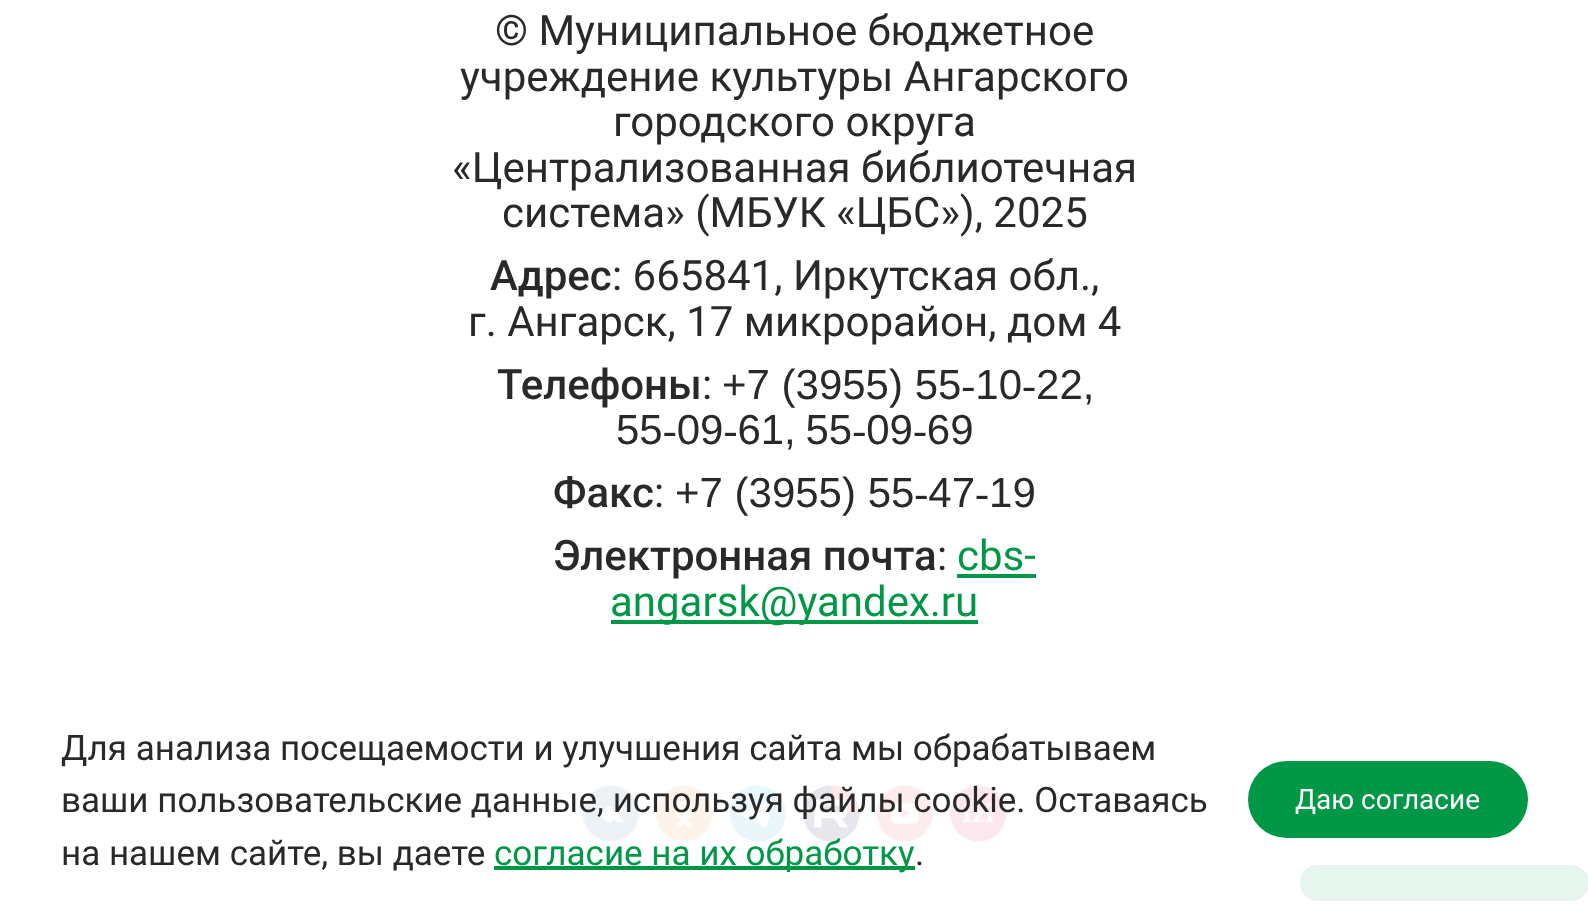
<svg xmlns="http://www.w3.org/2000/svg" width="1588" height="913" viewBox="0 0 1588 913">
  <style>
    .t1 { font: 42px Roboto; fill: #292929; }
    .t2 { font: 500 42px Roboto; fill: #292929; }
    .t3 { font: 42px Liberation Sans; fill: #292929; }
    .t4 { font: 42px Roboto; fill: #009846; }
    .t5 { font: 35px Roboto; fill: #292929; }
    .t6 { font: 35px Roboto; fill: #009846; }
    .t7 { font: 28px Roboto; fill: #fff; }
  </style>
  <rect width="100%" height="100%" fill="#fff"/>
  <text x="495" y="45" class="t1">© Муниципальное бюджетное</text>
  <text x="460" y="91" class="t1">учреждение культуры Ангарского</text>
  <text x="613" y="136" class="t1">городского округа</text>
  <text x="452" y="182" class="t1">«Централизованная библиотечная</text>
  <text x="502" y="227" class="t1">система» (МБУК «ЦБС»), 2025</text>
  <text x="490" y="290" class="t2">Адрес</text>
  <text x="612" y="290" class="t1">: 665841, Иркутская обл.,</text>
  <text x="468" y="336" class="t1">г. Ангарск, 17 микрорайон, дом 4</text>
  <text x="497" y="399" class="t2">Телефоны</text>
  <text x="702" y="399" class="t1">:</text>
  <text x="722" y="399" class="t3">+7 (3955) 55‑10‑22,</text>
  <text x="616" y="444" word-spacing="-2" class="t3">55‑09‑61, 55‑09‑69</text>
  <text x="553" y="507" class="t2">Факс</text>
  <text x="654" y="507" class="t1">:</text>
  <text x="675" y="507" class="t3">+7 (3955) 55‑47‑19</text>
  <text x="553" y="570" class="t2">Электронная почта</text>
  <text x="937" y="570" class="t1">:</text>
  <text x="957" y="570" class="t4">cbs-</text>
  <rect x="957" y="574" width="79" height="4" fill="#009846"/>
  <rect x="611" y="620" width="367" height="4" fill="#009846"/>
  <text x="610" y="616" class="t4">angarsk@yandex.ru</text>
  <image x="582" y="785" width="57" height="57" href="images/1.png"/>
  <image x="656" y="785" width="57" height="57" href="images/2.png"/>
  <image x="729" y="785" width="57" height="57" href="images/3.png"/>
  <image x="803" y="785" width="57" height="57" href="images/4.png"/>
  <image x="876" y="785" width="57" height="57" href="images/5.png"/>
  <image x="950" y="785" width="57" height="57" href="images/6.png"/>
  <rect x="1300" y="865" width="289" height="36" rx="18" fill="#009846"/>
  <rect x="582" y="785" width="1006" height="116" fill="#ffffffe6"/>
  <text x="61" y="760" class="t5">Для анализа посещаемости и улучшения сайта мы обрабатываем</text>
  <text x="61" y="812" class="t5">ваши пользовательские данные, используя файлы cookie. Оставаясь</text>
  <text x="61" y="865" class="t5">на нашем сайте, вы даете</text>
  <rect x="494" y="866" width="421" height="4" fill="#009846"/>
  <text x="494" y="865" class="t6">согласие на их обработку</text>
  <text x="915" y="865" class="t5">.</text>
  <rect x="1248" y="761" width="280" height="77" rx="38.5" fill="#009846"/>
  <text x="1295" y="809" class="t7">Даю согласие</text>
</svg>
